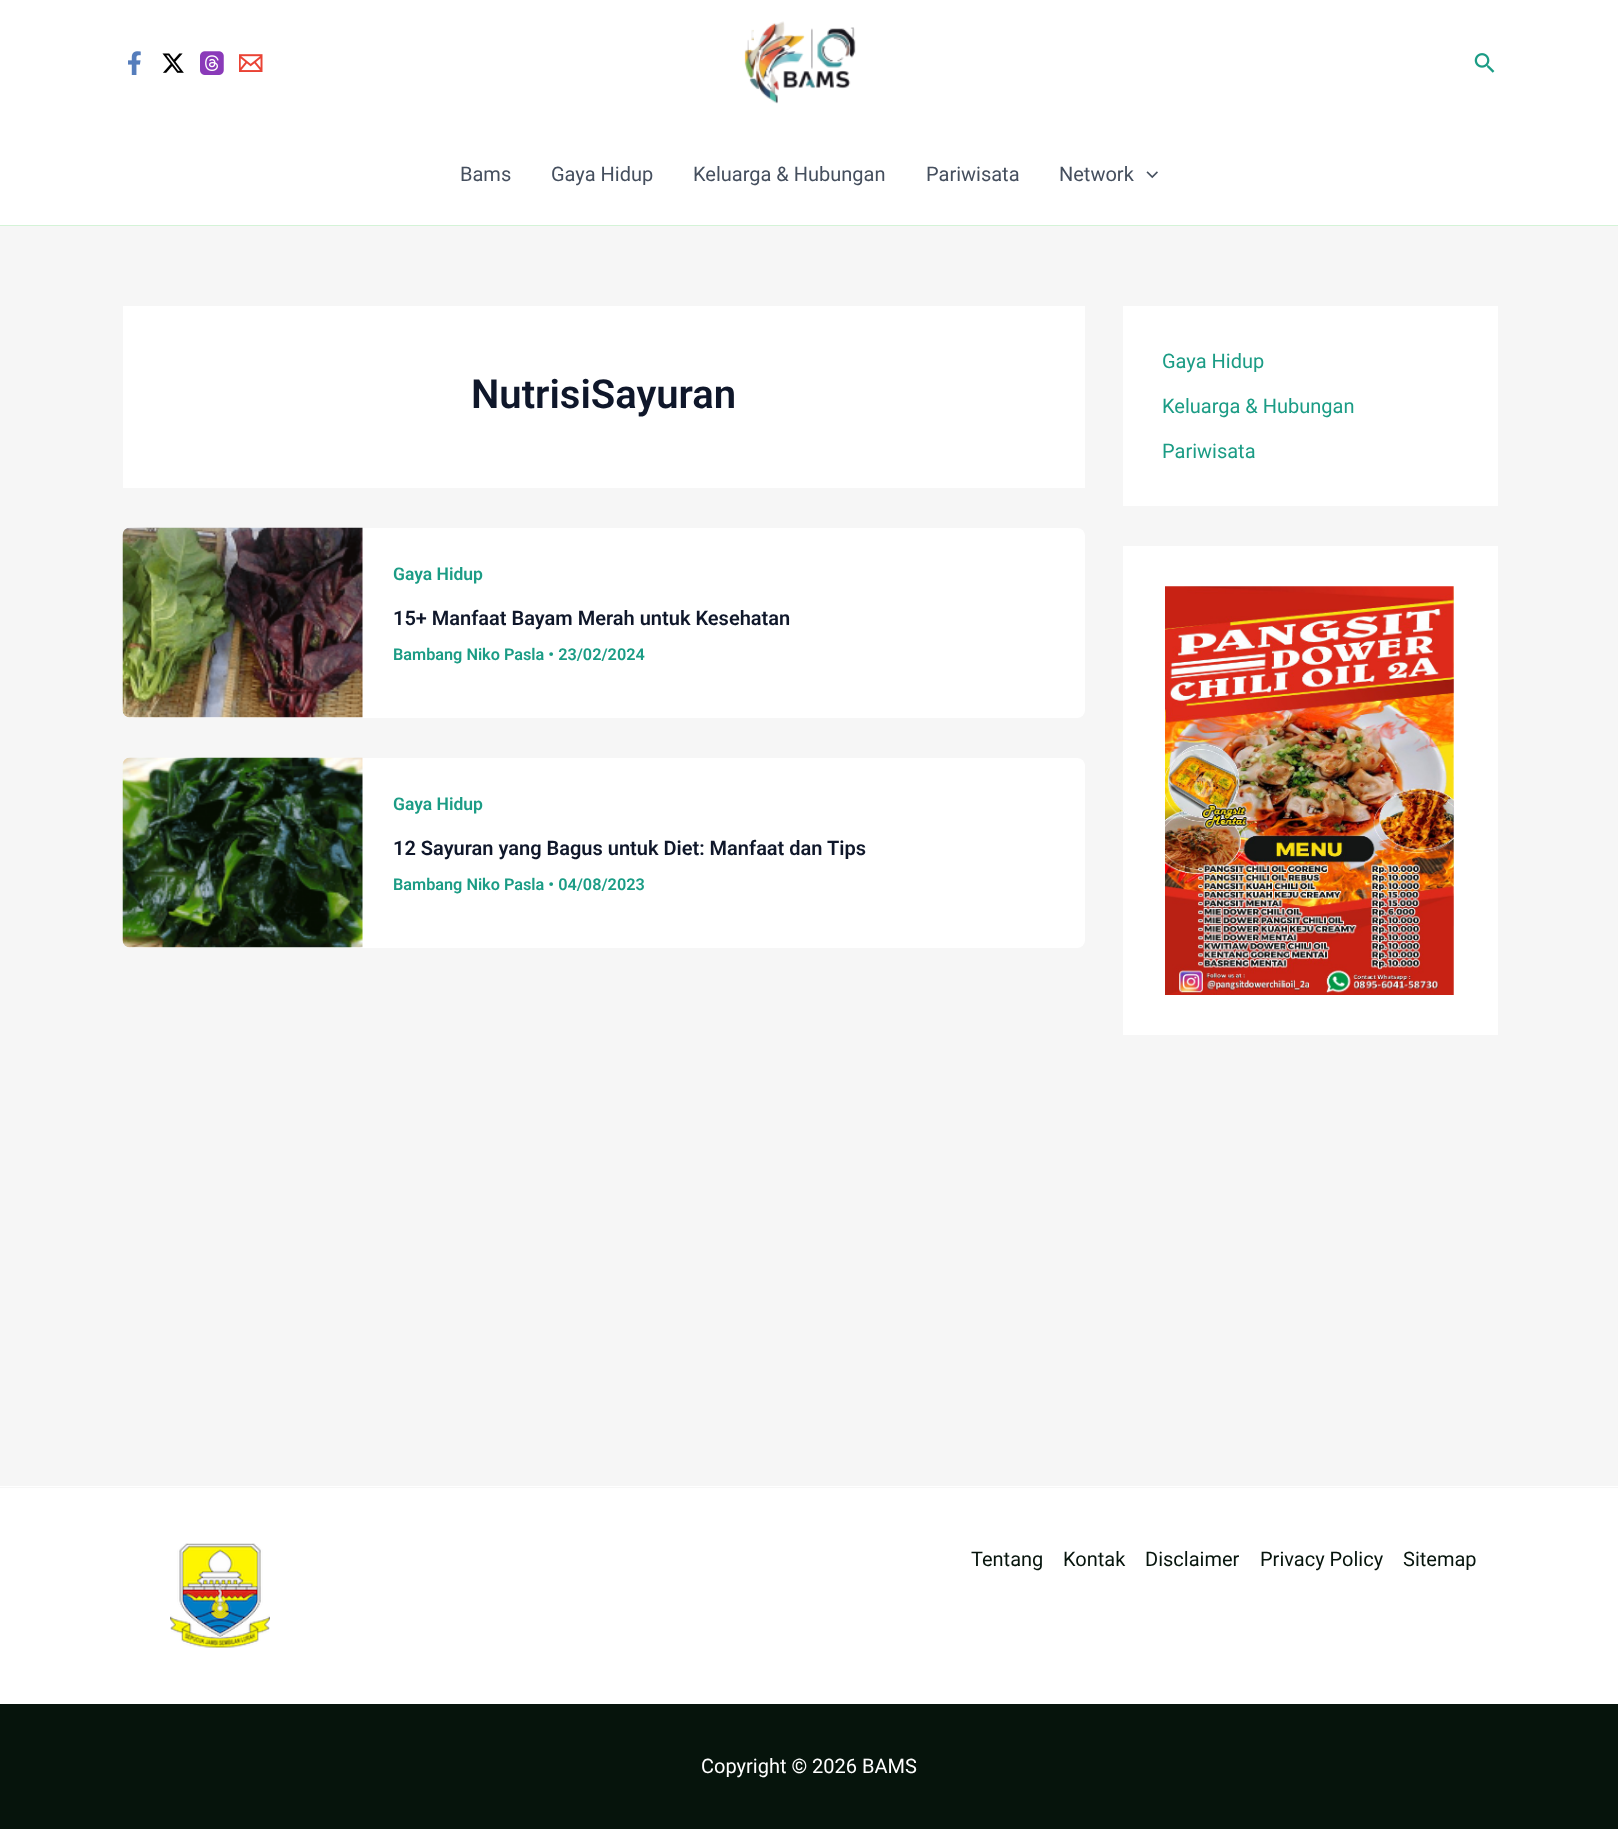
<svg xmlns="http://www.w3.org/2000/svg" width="1618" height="1829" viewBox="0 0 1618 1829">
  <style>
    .t1 { font: 20px Roboto; fill: #454f5e; }
    .t2 { font: 600 40px Roboto; fill: #0f172a; }
    .t3 { font: 600 17.5px Roboto; fill: #1b9c85; }
    .t4 { font: 600 20px Roboto; fill: #0f172a; }
    .t5 { font: 600 16.25px Roboto; fill: #1b9c85; }
    .t6 { font: 20px Roboto; fill: #1b9c85; }
    .t7 { font: 20px Roboto; fill: #06140c; }
    .t8 { font: 20px Roboto; fill: #fff; }
  </style>
  <rect width="100%" height="100%" fill="#f6f6f6"/>
  <rect x="0" y="0" width="1618" height="225" fill="#fff"/>
  <image x="128" y="51" width="13" height="24" href="images/1.png"/>
  <image x="162" y="53" width="22" height="20" href="images/2.png"/>
  <image x="200" y="51" width="24" height="24" href="images/3.png"/>
  <image x="239" y="54" width="24" height="18" href="images/4.png"/>
  <image x="744" y="21" width="112" height="83" href="images/5.png"/>
  <image x="1474" y="53" width="21" height="20" href="images/6.png"/>
  <rect x="0" y="225" width="1618" height="1" fill="#d4f3d7"/>
  <text x="460" y="181" class="t1">Bams</text>
  <text x="551" y="181" class="t1">Gaya Hidup</text>
  <text x="693" y="181" class="t1">Keluarga &amp; Hubungan</text>
  <text x="926" y="181" class="t1">Pariwisata</text>
  <text x="1059" y="181" class="t1">Network</text>
  <image x="1146" y="171" width="12" height="8" href="images/7.png"/>
  <rect x="123" y="306" width="962" height="182" fill="#fff"/>
  <text x="471" y="408" class="t2">NutrisiSayuran</text>
  <rect x="123" y="528" width="962" height="190" rx="8" fill="#fff"/>
  <image x="122" y="527" width="241" height="191" href="images/8.png"/>
  <text x="393" y="580" class="t3">Gaya Hidup</text>
  <text x="393" y="625" class="t4">15+ Manfaat Bayam Merah untuk Kesehatan</text>
  <text x="393" y="660" class="t5">Bambang Niko Pasla • 23/02/2024</text>
  <rect x="123" y="758" width="962" height="190" rx="8" fill="#fff"/>
  <image x="122" y="757" width="241" height="191" href="images/9.png"/>
  <text x="393" y="810" class="t3">Gaya Hidup</text>
  <text x="393" y="855" class="t4">12 Sayuran yang Bagus untuk Diet: Manfaat dan Tips</text>
  <text x="393" y="890" class="t5">Bambang Niko Pasla • 04/08/2023</text>
  <rect x="1123" y="306" width="375" height="200" fill="#fff"/>
  <text x="1162" y="368" class="t6">Gaya Hidup</text>
  <text x="1162" y="413" class="t6">Keluarga &amp; Hubungan</text>
  <text x="1162" y="458" class="t6">Pariwisata</text>
  <rect x="1123" y="546" width="375" height="489" fill="#fff"/>
  <image x="1165" y="586" width="289" height="409" href="images/10.png"/>
  <rect x="0" y="1488" width="1618" height="216" fill="#fff"/>
  <rect x="0" y="1486" width="1618" height="1" fill="#fff"/>
  <image x="170" y="1543" width="100" height="105" href="images/11.png"/>
  <text x="971" y="1566" class="t7">Tentang</text>
  <text x="1063" y="1566" class="t7">Kontak</text>
  <text x="1145" y="1566" class="t7">Disclaimer</text>
  <text x="1260" y="1566" class="t7">Privacy Policy</text>
  <text x="1403" y="1566" class="t7">Sitemap</text>
  <rect x="0" y="1704" width="1618" height="125" fill="#06140c"/>
  <text x="701" y="1773" class="t8">Copyright © 2026 BAMS</text>
</svg>
